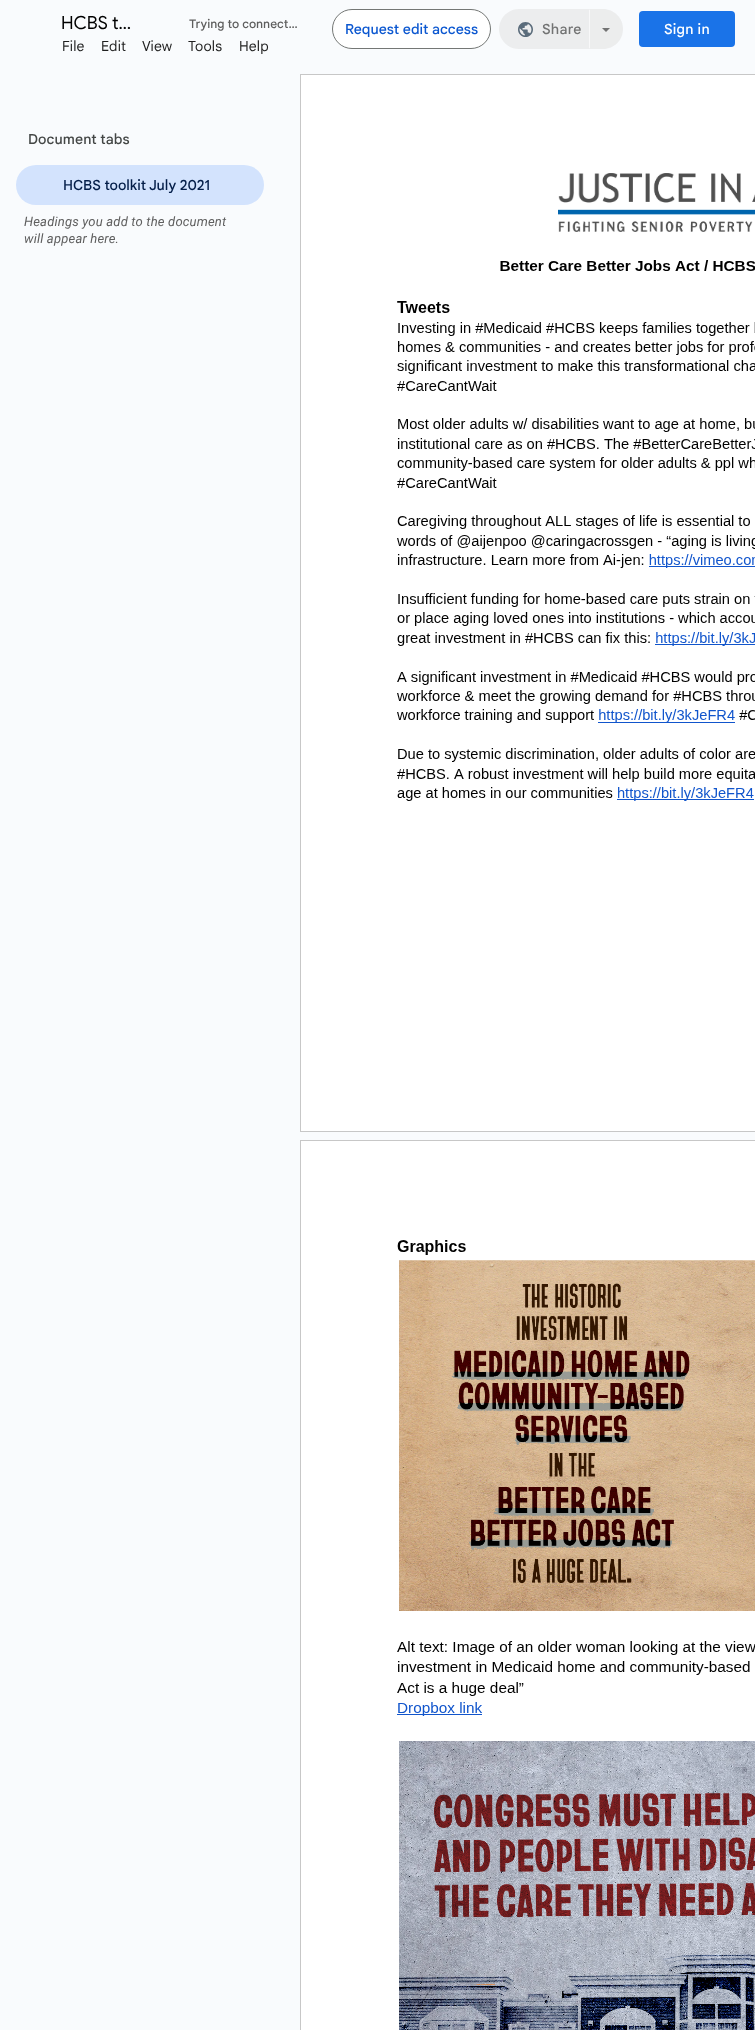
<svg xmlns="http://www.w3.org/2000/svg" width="755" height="2030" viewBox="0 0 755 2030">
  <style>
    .t1 { font: 18px 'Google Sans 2'; fill: #000; }
    .t2 { font: 500 12px Google Sans; fill: #5e5e5e; }
    .t3 { font: 500 14px Google Sans; fill: #0b57d0; }
    .t4 { font: 500 14px Google Sans; letter-spacing: 0.25px; fill: #727373; }
    .t5 { font: 500 14px Google Sans; letter-spacing: 0.25px; fill: #fff; }
    .t6 { font: 14px Google Sans; letter-spacing: 0.2px; fill: #1f1f1f; }
    .t7 { font: 500 14px Google Sans; letter-spacing: 0.1px; fill: #444746; }
    .t8 { font: 500 14px Google Sans; fill: #041e49; }
    .t9 { font: italic 13px Roboto; letter-spacing: 0.2px; fill: #5e5e5e; }
  </style>
  <rect width="100%" height="100%" fill="#f9fbfd"/>
  <text x="61" y="29" class="t1">HCBS t…</text>
  <text x="189" y="28" class="t2">Trying to connect…</text>
  <rect x="332.5" y="9.5" width="158" height="39" rx="19.5" fill="#fff" stroke="#747775"/>
  <text x="345" y="34" class="t3">Request edit access</text>
  <path d="M519 9H590V49H519C508 49 499 40 499 29C499 18 508 9 519 9Z" fill="#ecedee"/>
  <image x="518" y="22" width="15" height="15" href="images/1.png"/>
  <text x="542" y="34" class="t4">Share</text>
  <path d="M589 9H603C614 9 623 18 623 29C623 40 614 49 603 49H589Z" fill="#e4e4e49e"/>
  <path d="M590 10L589 9V49L590 48Z" fill="#f8f8f9"/>
  <path d="M602 28H610L606 32Z" fill="#727373"/>
  <rect x="639" y="11" width="96" height="36" rx="4" fill="#1a73e8"/>
  <text x="664" y="34" class="t5">Sign in</text>
  <text x="62" y="51" class="t6">File</text>
  <text x="101" y="51" class="t6">Edit</text>
  <text x="142" y="51" class="t6">View</text>
  <text x="188" y="51" class="t6">Tools</text>
  <text x="239" y="51" class="t6">Help</text>
  <text x="28" y="144" class="t7">Document tabs</text>
  <rect x="16" y="165" width="248" height="40" rx="20" fill="#d3e3fd"/>
  <text x="63" y="190" class="t8">HCBS toolkit July 2021</text>
  <text x="24" y="226" class="t9">Headings you add to the document</text>
  <text x="24" y="243" class="t9">will appear here.</text>
  <rect x="300.5" y="74.5" width="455" height="1057" fill="none" stroke="#c7c7c7"/>
  <image x="301" y="75" width="454" height="1056" href="images/2.png"/>
  <rect x="300.5" y="1140.5" width="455" height="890" fill="none" stroke="#c7c7c7"/>
  <image x="301" y="1141" width="454" height="889" href="images/3.png"/>
</svg>
